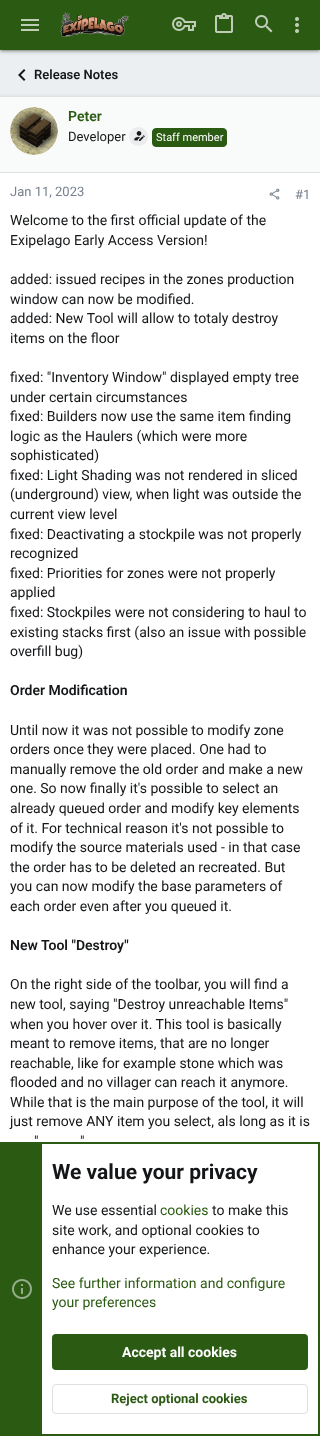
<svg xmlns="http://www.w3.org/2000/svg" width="320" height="1436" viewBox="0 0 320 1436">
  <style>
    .t1 { font: 600 13px Roboto; fill: #141618; }
    .t2 { font: 600 14px Roboto; fill: #2b5a13; }
    .t3 { font: 13px Roboto; fill: #141618; }
    .t4 { font: 11px Roboto; fill: #fff; }
    .t5 { font: 13px Roboto; fill: #76818d; }
    .t6 { font: 14px Roboto; fill: #141618; }
    .t7 { font: 600 14px Roboto; fill: #141618; }
    .t8 { font: bold 21px Roboto; fill: #141618; }
    .t9 { font: 14px Roboto; fill: #2b5a13; }
    .t10 { font: bold 14px Roboto; fill: #fff; }
    .t11 { font: bold 13px Roboto; fill: #2b5a13; }
  </style>
  <rect width="100%" height="100%" fill="#eceff1"/>
  <rect x="0" y="1" width="320" height="50" fill="#00000033" filter="blur(2.5px)"/>
  <rect x="2" y="5" width="316" height="46" fill="#0000001f" filter="blur(0.5px)"/>
  <rect x="0" y="2" width="320" height="50" fill="#00000024" filter="blur(1px)"/>
  <rect x="0" y="0" width="320" height="50" fill="#2b5a13"/>
  <image x="21" y="19" width="18" height="12" href="images/1.png"/>
  <image x="60" y="12" width="69" height="25" href="images/2.png"/>
  <image x="172" y="17" width="24" height="14" href="images/3.png"/>
  <image x="215" y="13" width="18" height="20" href="images/4.png"/>
  <image x="255" y="15" width="18" height="18" href="images/5.png"/>
  <image x="295" y="17" width="4" height="16" href="images/6.png"/>
  <image x="18" y="69" width="8" height="12" href="images/7.png"/>
  <text x="34" y="79" class="t1">Release Notes</text>
  <rect x="0" y="98" width="320" height="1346" fill="#00000033" filter="blur(2.5px)"/>
  <rect x="0" y="173" width="320" height="969" fill="#fff"/>
  <rect x="0" y="97" width="320" height="75" fill="#f9fafa"/>
  <rect x="0" y="172" width="320" height="1" fill="#e0e0e0"/>
  <circle cx="34" cy="131" r="24" fill="#fff"/>
  <image x="10" y="107" width="48" height="48" href="images/8.png"/>
  <text x="68" y="121" class="t2">Peter</text>
  <text x="68" y="141" class="t3">Developer</text>
  <circle cx="138.5" cy="136.5" r="9.5" fill="#ebecee"/>
  <image x="134" y="131" width="11" height="10" href="images/9.png"/>
  <rect x="152.5" y="128.5" width="74" height="18" rx="3.5" fill="#2b5a13" stroke="#2b5a13"/>
  <text x="156" y="141" class="t4">Staff member</text>
  <text x="10" y="196" class="t5">Jan 11, 2023</text>
  <image x="269" y="188" width="11" height="12" href="images/10.png"/>
  <text x="295" y="199" class="t5">#1</text>
  <text x="10" y="225" class="t6">Welcome to the first official update of the</text>
  <text x="10" y="245" class="t6">Exipelago Early Access Version!</text>
  <text x="10" y="284" class="t6">added: issued recipes in the zones production</text>
  <text x="10" y="304" class="t6">window can now be modified.</text>
  <text x="10" y="323" class="t6">added: New Tool will allow to totaly destroy</text>
  <text x="10" y="343" class="t6">items on the floor</text>
  <text x="10" y="382" class="t6">fixed: "Inventory Window" displayed empty tree</text>
  <text x="10" y="402" class="t6">under certain circumstances</text>
  <text x="10" y="421" class="t6">fixed: Builders now use the same item finding</text>
  <text x="10" y="441" class="t6">logic as the Haulers (which were more</text>
  <text x="10" y="460" class="t6">sophisticated)</text>
  <text x="10" y="480" class="t6">fixed: Light Shading was not rendered in sliced</text>
  <text x="10" y="499" class="t6">(underground) view, when light was outside the</text>
  <text x="10" y="519" class="t6">current view level</text>
  <text x="10" y="539" class="t6">fixed: Deactivating a stockpile was not properly</text>
  <text x="10" y="558" class="t6">recognized</text>
  <text x="10" y="578" class="t6">fixed: Priorities for zones were not properly</text>
  <text x="10" y="597" class="t6">applied</text>
  <text x="10" y="617" class="t6">fixed: Stockpiles were not considering to haul to</text>
  <text x="10" y="637" class="t6">existing stacks first (also an issue with possible</text>
  <text x="10" y="656" class="t6">overfill bug)</text>
  <text x="10" y="695" class="t7">Order Modification</text>
  <text x="10" y="735" class="t6">Until now it was not possible to modify zone</text>
  <text x="10" y="754" class="t6">orders once they were placed. One had to</text>
  <text x="10" y="774" class="t6">manually remove the old order and make a new</text>
  <text x="10" y="793" class="t6">one. So now finally it's possible to select an</text>
  <text x="10" y="813" class="t6">already queued order and modify key elements</text>
  <text x="10" y="833" class="t6">of it. For technical reason it's not possible to</text>
  <text x="10" y="852" class="t6">modify the source materials used - in that case</text>
  <text x="10" y="872" class="t6">the order has to be deleted an recreated. But</text>
  <text x="10" y="891" class="t6">you can now modify the base parameters of</text>
  <text x="10" y="911" class="t6">each order even after you queued it.</text>
  <text x="10" y="950" class="t7">New Tool "Destroy"</text>
  <text x="10" y="989" class="t6">On the right side of the toolbar, you will find a</text>
  <text x="10" y="1009" class="t6">new tool, saying "Destroy unreachable Items"</text>
  <text x="10" y="1029" class="t6">when you hover over it. This tool is basically</text>
  <text x="10" y="1048" class="t6">meant to remove items, that are no longer</text>
  <text x="10" y="1068" class="t6">reachable, like for example stone which was</text>
  <text x="10" y="1087" class="t6">flooded and no villager can reach it anymore.</text>
  <text x="10" y="1107" class="t6">While that is the main purpose of the tool, it will</text>
  <text x="10" y="1126" class="t6">just remove ANY item you select, als long as it is</text>
  <text x="34" y="1146" class="t6">"</text>
  <text x="80" y="1146" class="t6">"</text>
  <rect x="42" y="1144" width="276" height="290" fill="#fff"/>
  <rect x="1" y="1143" width="318" height="292" fill="none" stroke="#2b5a13" stroke-width="2"/>
  <rect x="2" y="1144" width="40" height="290" fill="#2b5a13"/>
  <image x="12" y="1279" width="20" height="20" href="images/11.png"/>
  <text x="52" y="1179" class="t8">We value your privacy</text>
  <text x="52" y="1215" class="t6">We use essential</text>
  <text x="160" y="1215" class="t9">cookies</text>
  <text x="212" y="1215" class="t6">to make this</text>
  <text x="52" y="1235" class="t6">site work, and optional cookies to</text>
  <text x="52" y="1254" class="t6">enhance your experience.</text>
  <text x="52" y="1288" class="t9">See further information and configure</text>
  <text x="52" y="1307" class="t9">your preferences</text>
  <rect x="52" y="1334" width="256" height="36" rx="4" fill="#2b5a13"/>
  <text x="122" y="1357" class="t10">Accept all cookies</text>
  <rect x="52.5" y="1384.5" width="255" height="29" rx="3.5" fill="none" stroke="#e0e0e0"/>
  <text x="111" y="1403" class="t11">Reject optional cookies</text>
</svg>
